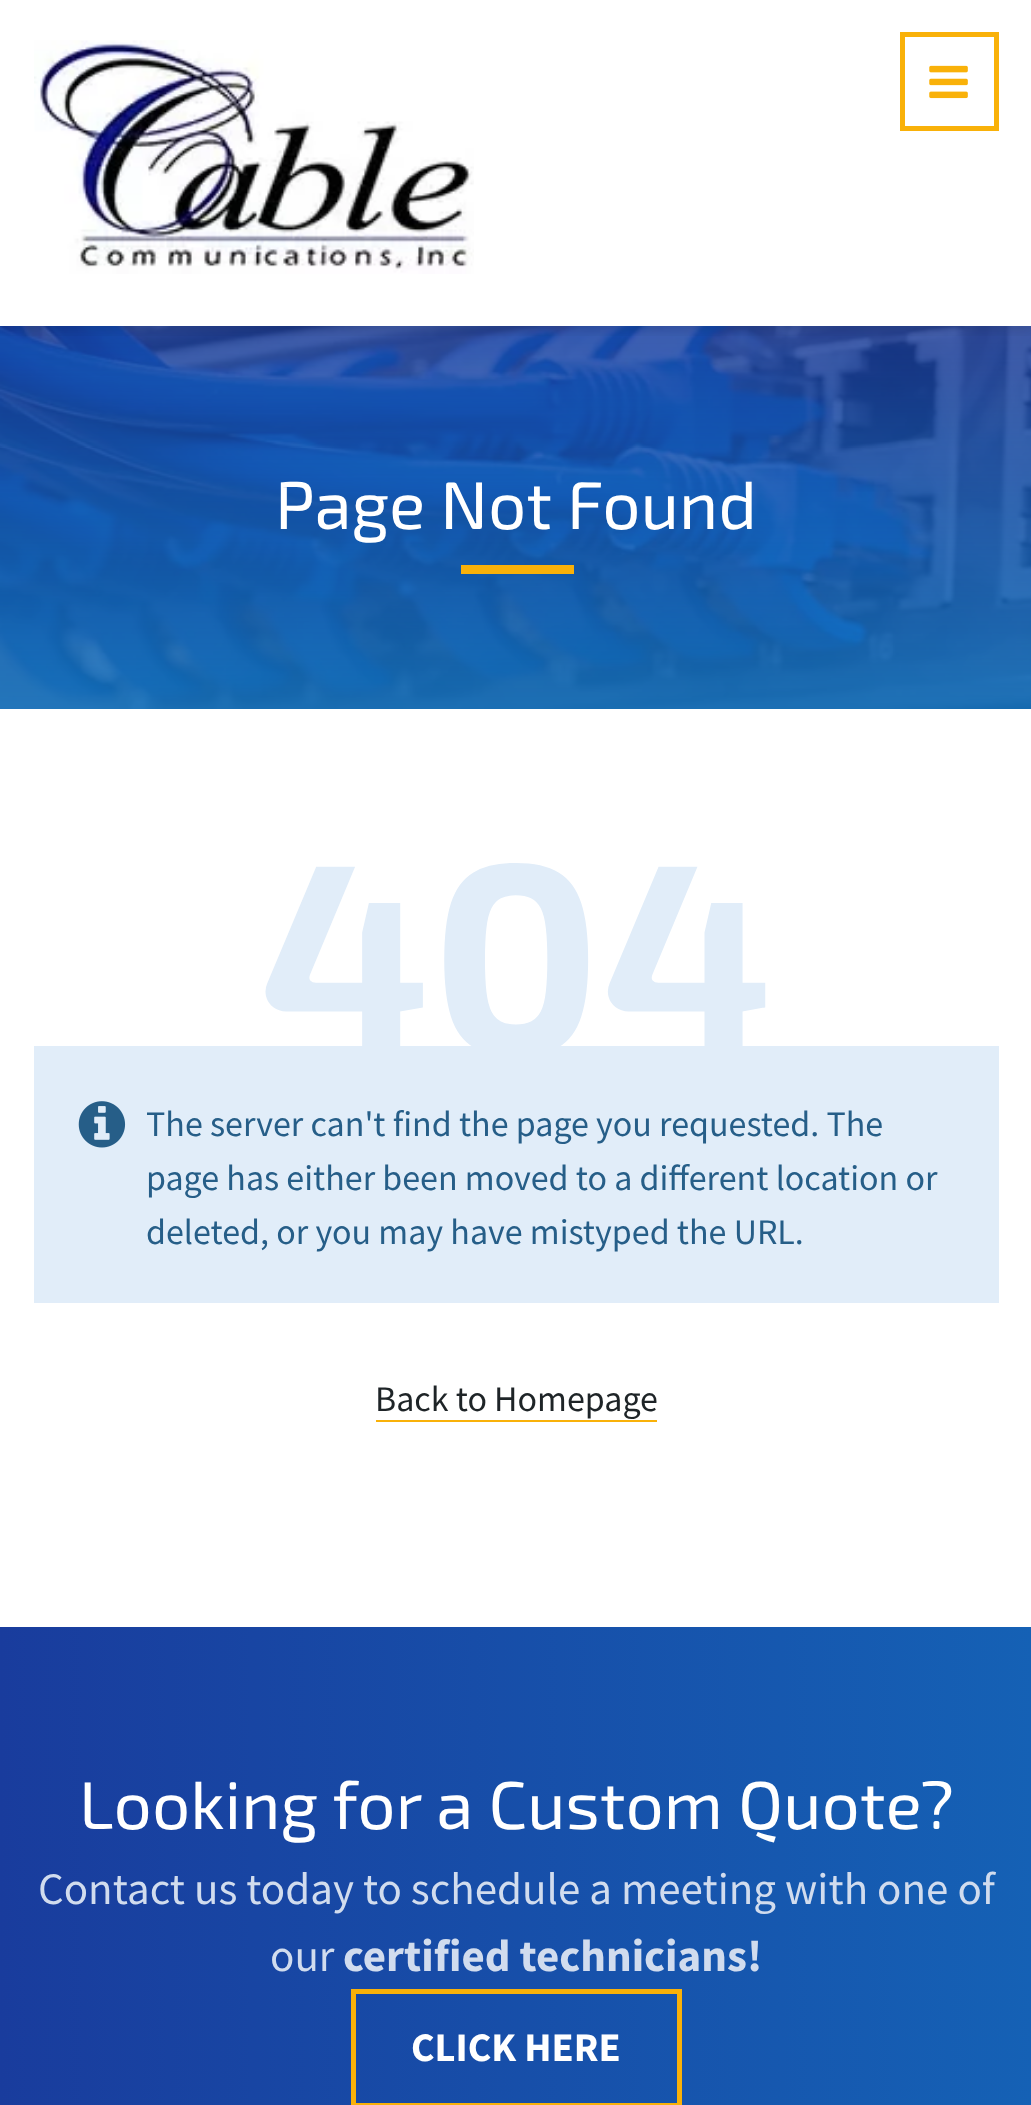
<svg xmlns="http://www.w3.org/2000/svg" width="1031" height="2105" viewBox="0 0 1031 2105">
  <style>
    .t1 { font: 67.5px 'Exo 2'; fill: #fff; }
    .t2 { font: bold 270px 'Exo 2'; fill: #e1edf9; }
    .t3 { font: 36px Source Sans Pro; fill: #265e88; }
    .t4 { font: 36px Source Sans Pro; fill: #1e2427; }
    .t5 { font: 45px Source Sans Pro; fill: #d1dcee; }
    .t6 { font: bold 45px Source Sans Pro; fill: #d1dcee; }
    .t7 { font: bold 40.5px Source Sans Pro; fill: #fff; }
  </style>
  <defs>
    <clipPath id="clip1"><rect x="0" y="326" width="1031" height="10"/></clipPath>
    <linearGradient id="g1" gradientUnits="userSpaceOnUse" x1="0" y1="1935" x2="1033" y2="1935"><stop offset="0" stop-color="#193c9d"/><stop offset="1" stop-color="#1561b5"/></linearGradient>
  </defs>
  <rect width="100%" height="100%" fill="#fff"/>
  <image x="0" y="326" width="1031" height="383" href="images/3.png"/>
  <g clip-path="url(#clip1)">
    <rect x="0" y="5" width="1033" height="326" fill="#0000001a" filter="blur(5.5px)"/>
  </g>
  <image x="34" y="40" width="440" height="234" href="images/1.png"/>
  <rect x="902.5" y="34.5" width="94" height="94" fill="none" stroke="#f9b109" stroke-width="5"/>
  <image x="929" y="65" width="39" height="34" href="images/2.png"/>
  <text x="275" y="529" class="t1">Page Not Found</text>
  <rect x="461" y="565" width="113" height="9" fill="#f9b109"/>
  <text x="259" y="1053" class="t2">404</text>
  <rect x="34" y="1046" width="965" height="257" fill="#e1edf9"/>
  <image x="78" y="1101" width="48" height="47" href="images/4.png"/>
  <text x="146" y="1136" class="t3">The server can't find the page you requested. The</text>
  <text x="146" y="1190" class="t3">page has either been moved to a different location or</text>
  <text x="146" y="1244" class="t3">deleted, or you may have mistyped the URL.</text>
  <text x="375" y="1411" class="t4">Back to Homepage</text>
  <rect x="376" y="1420" width="281" height="2" fill="#f9b109"/>
  <rect x="0" y="1627" width="1031" height="478" fill="url(#g1)"/>
  <text x="79" y="1829" class="t1">Looking for a Custom Quote?</text>
  <text x="38" y="1904" class="t5">Contact us today to schedule a meeting with one of</text>
  <text x="270" y="1971" class="t5">our</text>
  <text x="343" y="1971" class="t6">certified technicians</text>
  <text x="747" y="1971" class="t6">!</text>
  <rect x="353.5" y="1991.5" width="326" height="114" fill="none" stroke="#f9b109" stroke-width="5"/>
  <text x="411" y="2061" class="t7">CLICK HERE</text>
</svg>
